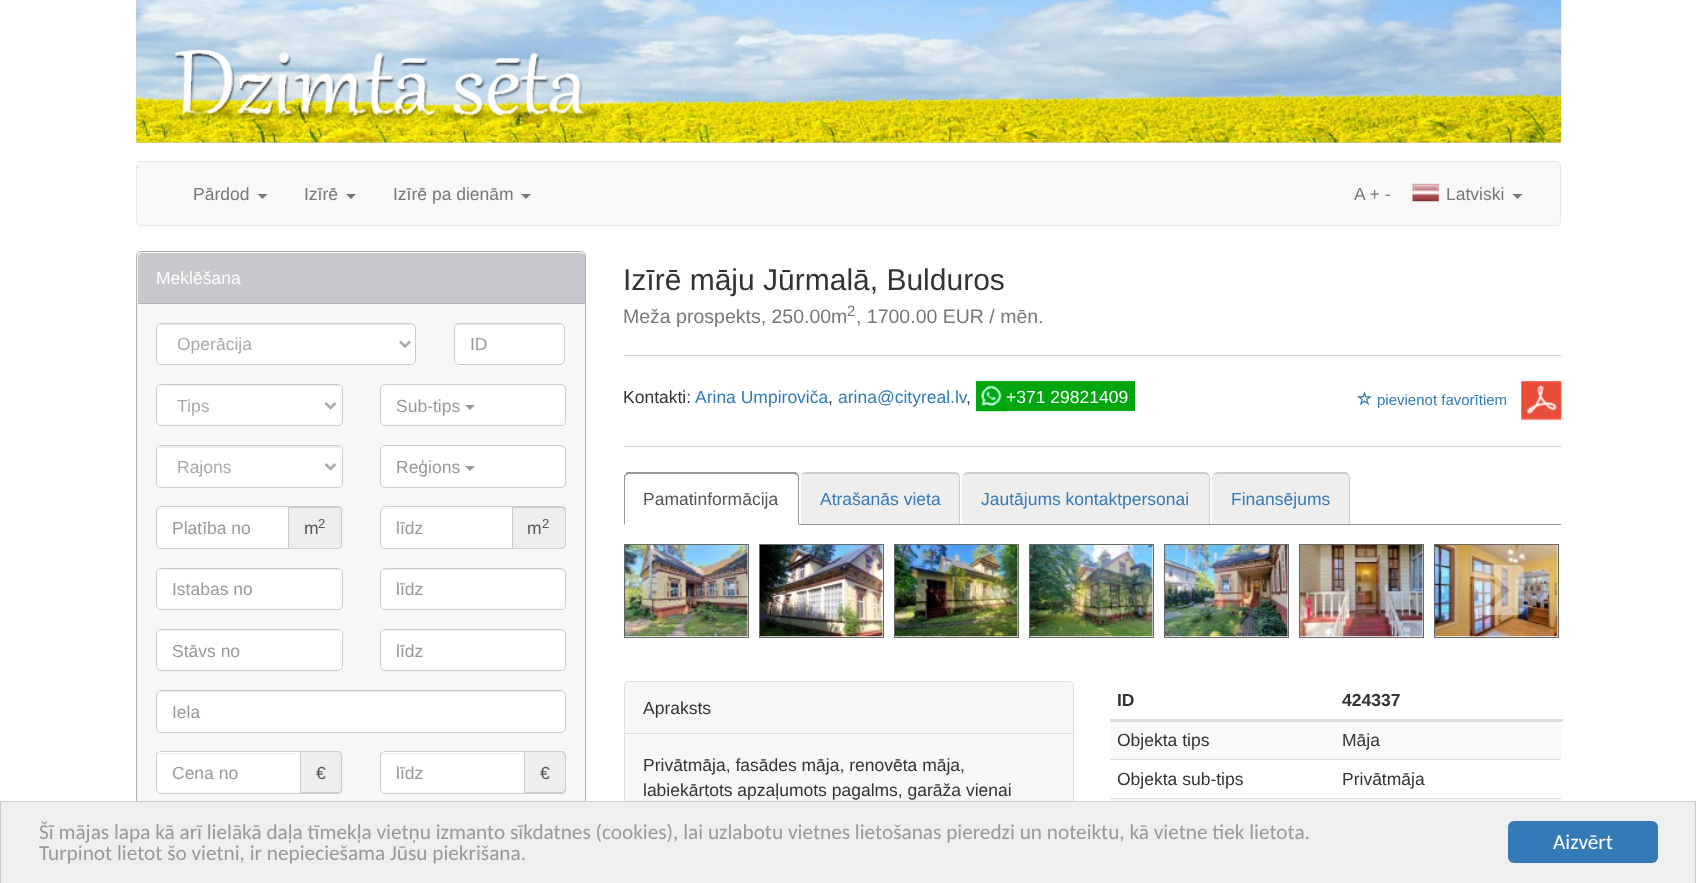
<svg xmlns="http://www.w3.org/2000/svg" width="1696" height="883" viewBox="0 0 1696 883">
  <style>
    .t1 { font: 17.5px Liberation Sans; fill: #777; }
    .t2 { font: 17.5px Liberation Sans; fill: #fff; }
    .t3 { font: 17.5px Liberation Sans; fill: #aaa; }
    .t4 { font: 17.5px Liberation Sans; fill: #999; }
    .t5 { font: 13px Liberation Sans; fill: #555; }
    .t6 { font: 17.5px Liberation Sans; fill: #555; }
    .t7 { font: 30px Liberation Sans; fill: #333; }
    .t8 { font: 19.5px Liberation Sans; fill: #777; }
    .t9 { font: 15px Liberation Sans; fill: #777; }
    .t10 { font: 17.5px Liberation Sans; fill: #333; }
    .t11 { font: 17.5px Liberation Sans; fill: #337ab7; }
    .t12 { font: 15px Liberation Sans; fill: #337ab7; }
    .t13 { font: bold 17.5px Liberation Sans; fill: #333; }
    .t14 { font: 21.25px Carlito; fill: #999; }
    .t15 { font: 21.25px Carlito; fill: #fff; }
  </style>
  <defs>
    <clipPath id="clip1"><rect x="178" y="333" width="202" height="22"/></clipPath>
    <clipPath id="clip2"><rect x="173" y="763" width="112" height="20"/></clipPath>
  </defs>
  <rect width="100%" height="100%" fill="#fff"/>
  <rect x="136" y="0" width="1425" height="143" fill="#cac7cd"/>
  <image x="136" y="0" width="1426" height="143" href="images/1.png"/>
  <image x="174" y="49" width="429" height="73" href="images/2.png"/>
  <rect x="136.5" y="161.5" width="1424" height="64" rx="4.5" fill="#f8f8f8" stroke="#e7e7e7"/>
  <text x="193" y="200" class="t1">Pārdod</text>
  <path d="M257.5 194H267.5L262.5 199Z" fill="#777"/>
  <text x="304" y="200" class="t1">Izīrē</text>
  <path d="M346 194H356L351 199Z" fill="#777"/>
  <text x="393" y="200" class="t1">Izīrē pa dienām</text>
  <path d="M521 194H531L526 199Z" fill="#777"/>
  <text x="1354" y="200" class="t1">A + -</text>
  <image x="1412" y="183" width="27" height="19" href="images/3.png"/>
  <text x="1446" y="200" class="t1">Latviski</text>
  <path d="M1512.5 194H1522.5L1517.5 199Z" fill="#777"/>
  <rect x="136.5" y="251.5" width="449" height="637" rx="4.5" fill="#f7f7f7" stroke="#b1adb5"/>
  <path d="M142 253H581C583 253 585 255 585 257V304H138V257C138 255 140 253 142 253Z" fill="#c9c6cc"/>
  <rect x="138" y="303" width="447" height="1" fill="#b1adb5"/>
  <text x="156" y="284" class="t2">Meklēšana</text>
  <rect x="156" y="323" width="260" height="42" rx="5" fill="#fff"/>
  <path d="M161 325H411C413 325 415 327 415 329V328C415 326 413 324 411 324H162C160 324 158 326 158 328V329C158 327 159 325 161 325Z" fill="#ececec"/>
  <rect x="156.5" y="323.5" width="259" height="41" rx="4.5" fill="none" stroke="#ccc"/>
  <path d="M400 341.5L405 346.5L410 341.5" fill="none" stroke="#aaa" stroke-width="2.5"/>
  <g clip-path="url(#clip1)">
    <text x="177" y="350" class="t3">Operācija</text>
  </g>
  <rect x="454" y="323" width="111" height="42" rx="5" fill="#fff"/>
  <path d="M459 325H560C562 325 564 327 564 329C564 320 547 324 543 324H476C472 324 455 320 455 329C455 327 457 325 459 325Z" fill="#ececec"/>
  <rect x="454.5" y="323.5" width="110" height="41" rx="4.5" fill="none" stroke="#ccc"/>
  <text x="470" y="350" class="t4">ID</text>
  <rect x="156" y="384" width="187" height="42" rx="5" fill="#fff"/>
  <path d="M161 386H338C340 386 341 388 341 390V389C341 387 339 385 337 385H162C160 385 158 387 158 389V390C158 388 159 386 161 386Z" fill="#ececec"/>
  <rect x="156.5" y="384.5" width="186" height="41" rx="4.5" fill="none" stroke="#ccc"/>
  <path d="M325.5 403L330.5 408L335.5 403" fill="none" stroke="#aaa" stroke-width="2.5"/>
  <text x="177" y="412" class="t3">Tips</text>
  <rect x="380.5" y="384.5" width="185" height="41" rx="4.5" fill="#fff" stroke="#ccc"/>
  <text x="396" y="412" class="t4">Sub-tips</text>
  <path d="M465 405H475L470 410Z" fill="#999"/>
  <rect x="156" y="445" width="187" height="43" rx="5" fill="#fff"/>
  <path d="M161 448H339L340 449L341 451V450C341 448 339 446 337 446H162C160 446 158 448 158 450V451C158 449 159 448 161 448Z" fill="#ececec"/>
  <rect x="156.5" y="445.5" width="186" height="42" rx="4.5" fill="none" stroke="#ccc"/>
  <path d="M325.5 464L330.5 469L335.5 464" fill="none" stroke="#aaa" stroke-width="2.5"/>
  <text x="177" y="473" class="t3">Rajons</text>
  <rect x="380.5" y="445.5" width="185" height="42" rx="4.5" fill="#fff" stroke="#ccc"/>
  <text x="396" y="473" class="t4">Reģions</text>
  <path d="M465 466H475L470 471Z" fill="#999"/>
  <path d="M161 506H289V549H161C158 549 156 547 156 544V511C156 508 158 506 161 506Z" fill="#fff"/>
  <path d="M161 509H288V508H162C161 508 159 509 159 510Z" fill="#ececec"/>
  <path d="M161 506.5H288.5V548.5H161C158.5 548.5 156.5 546.5 156.5 544V511C156.5 508.5 158.5 506.5 161 506.5Z" fill="none" stroke="#ccc"/>
  <text x="172" y="534" class="t4">Platība no</text>
  <path d="M289 506H338C341 506 343 508 343 511V544C343 547 341 549 338 549H289Z" fill="#eee"/>
  <path d="M289 506H338C340 506 342 508 342 511V544C342 547 340 549 338 549H289ZM289 508H338C340 508 341 509 341 511V544C341 546 340 548 338 548H289Z" fill="#ccc" fill-rule="evenodd"/>
  <text x="318" y="528" class="t5">2</text>
  <text x="304" y="534" class="t6">m</text>
  <path d="M513 506H561C564 506 566 508 566 511V544C566 547 564 549 561 549H513Z" fill="#eee"/>
  <path d="M512 506H561C564 506 566 508 566 511V544C566 547 564 549 561 549H512ZM512 508H561C563 508 565 509 565 511V544C565 546 563 548 561 548H512Z" fill="#ccc" fill-rule="evenodd"/>
  <path d="M385 506H513V549H385C382 549 380 547 380 544V511C380 508 382 506 385 506Z" fill="#fff"/>
  <path d="M385 509H511V508H385C383 508 381 510 381 512C381 510 383 509 385 509Z" fill="#ececec"/>
  <path d="M385 506.5H512.5V548.5H385C382.5 548.5 380.5 546.5 380.5 544V511C380.5 508.5 382.5 506.5 385 506.5Z" fill="none" stroke="#ccc"/>
  <text x="396" y="534" class="t4">līdz</text>
  <text x="542" y="528" class="t5">2</text>
  <text x="527" y="534" class="t6">m</text>
  <rect x="156" y="568" width="187" height="42" rx="5" fill="#fff"/>
  <path d="M161 570H338C340 570 341 572 341 574V573C341 571 339 569 337 569H162C160 569 158 571 158 573V574C158 572 159 570 161 570Z" fill="#ececec"/>
  <rect x="156.5" y="568.5" width="186" height="41" rx="4.5" fill="none" stroke="#ccc"/>
  <text x="172" y="595" class="t4">Istabas no</text>
  <rect x="380" y="568" width="186" height="42" rx="5" fill="#fff"/>
  <path d="M385 570H561C563 570 565 572 565 574C565 571 564 569 561 569H384C382 570 381 572 381 574C381 572 383 570 385 570Z" fill="#ececec"/>
  <rect x="380.5" y="568.5" width="185" height="41" rx="4.5" fill="none" stroke="#ccc"/>
  <text x="396" y="595" class="t4">līdz</text>
  <rect x="156" y="629" width="187" height="42" rx="5" fill="#fff"/>
  <path d="M161 631H338C340 631 341 633 341 635V634C341 632 339 630 337 630H162C160 630 158 632 158 634V635C158 633 159 631 161 631Z" fill="#ececec"/>
  <rect x="156.5" y="629.5" width="186" height="41" rx="4.5" fill="none" stroke="#ccc"/>
  <text x="172" y="657" class="t4">Stāvs no</text>
  <rect x="380" y="629" width="186" height="42" rx="5" fill="#fff"/>
  <path d="M385 631H561C563 631 565 633 565 635C565 632 564 630 561 630H384C382 631 381 633 381 635C381 633 383 631 385 631Z" fill="#ececec"/>
  <rect x="380.5" y="629.5" width="185" height="41" rx="4.5" fill="none" stroke="#ccc"/>
  <text x="396" y="657" class="t4">līdz</text>
  <rect x="156" y="690" width="410" height="43" rx="5" fill="#fff"/>
  <path d="M161 692H561C563 692 565 694 565 696V695C565 693 563 691 561 691H162C160 691 158 693 158 695V696C158 694 159 692 161 692Z" fill="#ececec"/>
  <rect x="156.5" y="690.5" width="409" height="42" rx="4.5" fill="none" stroke="#ccc"/>
  <text x="172" y="718" class="t4">Iela</text>
  <path d="M161 751H301V794H161C158 794 156 792 156 789V756C156 753 158 751 161 751Z" fill="#fff"/>
  <path d="M161 754H300V753H162C160 753 158 755 158 757V758C158 755 159 754 161 754Z" fill="#ececec"/>
  <path d="M161 751.5H300.5V793.5H161C158.5 793.5 156.5 791.5 156.5 789V756C156.5 753.5 158.5 751.5 161 751.5Z" fill="none" stroke="#ccc"/>
  <g clip-path="url(#clip2)">
    <text x="172" y="779" class="t4">Cena no</text>
  </g>
  <path d="M301 751H338C341 751 343 753 343 756V789C343 792 341 794 338 794H301Z" fill="#eee"/>
  <path d="M301 751H338C340 751 342 753 342 756V789C342 792 340 794 338 794H301ZM301 752H338C340 752 341 754 341 756V789C341 791 340 792 338 792H301Z" fill="#ccc" fill-rule="evenodd"/>
  <text x="316" y="779" class="t6">€</text>
  <path d="M385 751H525V794H385C382 794 380 792 380 789V756C380 753 382 751 385 751Z" fill="#fff"/>
  <path d="M385 754H524V753H385C383 753 381 755 381 757V758C381 755 383 754 385 754Z" fill="#ececec"/>
  <path d="M385 751.5H524.5V793.5H385C382.5 793.5 380.5 791.5 380.5 789V756C380.5 753.5 382.5 751.5 385 751.5Z" fill="none" stroke="#ccc"/>
  <text x="396" y="779" class="t4">līdz</text>
  <path d="M525 751H561C564 751 566 753 566 756V789C566 792 564 794 561 794H525Z" fill="#eee"/>
  <path d="M525 751H561C564 751 566 753 566 756V789C566 792 564 794 561 794H525ZM525 752H561C563 752 565 754 565 756V789C565 791 563 792 561 792H525Z" fill="#ccc" fill-rule="evenodd"/>
  <text x="540" y="779" class="t6">€</text>
  <text x="623" y="290" class="t7">Izīrē māju Jūrmalā, Bulduros</text>
  <text x="623" y="323" class="t8">Meža prospekts, 250.00m</text>
  <text x="847" y="316" class="t9">2</text>
  <text x="856" y="323" class="t8">, 1700.00 EUR / mēn.</text>
  <rect x="624" y="355" width="937" height="1" fill="#ccc"/>
  <text x="623" y="403" class="t10">Kontakti:</text>
  <text x="695" y="403" class="t11">Arina Umpiroviča</text>
  <text x="828" y="403" class="t10">,</text>
  <text x="838" y="403" class="t11">arina@cityreal.lv</text>
  <text x="966" y="403" class="t10">,</text>
  <rect x="976" y="381" width="159" height="30" fill="#00a60e"/>
  <image x="976" y="385" width="31" height="27" href="images/4.png"/>
  <text x="1006" y="403" class="t2">+371 29821409</text>
  <image x="1357" y="391" width="15" height="14" href="images/5.png"/>
  <text x="1377" y="405" class="t12">pievienot favorītiem</text>
  <image x="1521" y="381" width="41" height="40" href="images/6.png"/>
  <rect x="624" y="446" width="937" height="1" fill="#ccc"/>
  <rect x="799" y="524" width="762" height="1" fill="#999"/>
  <path d="M629 474L626 475L625 474L627 472H796L798 474L797 475L794 474Z" fill="#999"/>
  <path d="M799 476V525L798 524V477L797 475L798 474Z" fill="#999"/>
  <path d="M799 525L798 524H625L624 525Z" fill="#fff"/>
  <path d="M624 525V478C624 477 624 475 625 474L626 475L625 477V524Z" fill="#999"/>
  <text x="643" y="505" class="t6">Pamatinformācija</text>
  <path d="M806 474H955C957 474 959 475 959 478V524H801V478C801 475 803 474 806 474Z" fill="#eee"/>
  <path d="M806 472H955C958 472 960 475 960 478V524H801V478C801 475 803 472 806 472ZM806 474H955C957 474 959 475 959 478V524H801V478C801 475 803 474 806 474Z" fill="#ccc" fill-rule="evenodd"/>
  <text x="820" y="505" class="t11">Atrašanās vieta</text>
  <path d="M968 474H1205C1207 474 1209 475 1209 478V524H962V478C962 475 965 474 968 474Z" fill="#eee"/>
  <path d="M968 472H1205C1208 472 1210 475 1210 478V524H962V478C962 475 965 472 968 472ZM968 474H1205C1207 474 1209 475 1209 478V524H962V478C962 475 965 474 968 474Z" fill="#ccc" fill-rule="evenodd"/>
  <text x="981" y="505" class="t11">Jautājums kontaktpersonai</text>
  <path d="M1218 474H1345C1347 474 1349 475 1349 478V524H1212V478C1212 475 1215 474 1218 474Z" fill="#eee"/>
  <path d="M1218 472H1345C1348 472 1350 475 1350 478V524H1212V478C1212 475 1215 472 1218 472ZM1218 474H1345C1347 474 1349 475 1349 478V524H1212V478C1212 475 1215 474 1218 474Z" fill="#ccc" fill-rule="evenodd"/>
  <text x="1231" y="505" class="t11">Finansējums</text>
  <rect x="624.5" y="544.5" width="124" height="93" fill="none" stroke="#666"/>
  <image x="625" y="545" width="123" height="92" href="images/7.png"/>
  <rect x="759.5" y="544.5" width="124" height="93" fill="none" stroke="#666"/>
  <image x="760" y="545" width="123" height="92" href="images/8.png"/>
  <rect x="894.5" y="544.5" width="124" height="93" fill="none" stroke="#666"/>
  <image x="895" y="545" width="123" height="92" href="images/9.png"/>
  <rect x="1029.5" y="544.5" width="124" height="93" fill="none" stroke="#666"/>
  <image x="1030" y="545" width="123" height="92" href="images/10.png"/>
  <rect x="1164.5" y="544.5" width="124" height="93" fill="none" stroke="#666"/>
  <image x="1165" y="545" width="123" height="92" href="images/11.png"/>
  <rect x="1299.5" y="544.5" width="124" height="93" fill="none" stroke="#666"/>
  <image x="1300" y="545" width="123" height="92" href="images/12.png"/>
  <rect x="1434.5" y="544.5" width="124" height="93" fill="none" stroke="#666"/>
  <image x="1435" y="545" width="123" height="92" href="images/13.png"/>
  <image x="1473" y="565" width="51" height="50" href="images/14.png"/>
  <rect x="624.5" y="681.5" width="449" height="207" rx="4.5" fill="#f7f7f7" stroke="#ddd"/>
  <rect x="625" y="733" width="448" height="1" fill="#ddd"/>
  <text x="643" y="714" class="t10">Apraksts</text>
  <text x="643" y="771" class="t10">Privātmāja, fasādes māja, renovēta māja,</text>
  <text x="643" y="796" class="t10">labiekārtots apzaļumots pagalms, garāža vienai</text>
  <text x="1117" y="706" class="t13">ID</text>
  <rect x="1110" y="719" width="453" height="3" fill="#ddd"/>
  <text x="1342" y="706" class="t13">424337</text>
  <rect x="1111" y="722" width="450" height="37" fill="#f9f9f9"/>
  <text x="1117" y="746" class="t10">Objekta tips</text>
  <text x="1342" y="746" class="t10">Māja</text>
  <text x="1117" y="785" class="t10">Objekta sub-tips</text>
  <rect x="1110" y="759" width="451" height="1" fill="#ddd"/>
  <text x="1342" y="785" class="t10">Privātmāja</text>
  <rect x="1111" y="799" width="450" height="2" fill="#f9f9f9"/>
  <rect x="1110" y="798" width="451" height="1" fill="#ddd"/>
  <rect x="0.5" y="801.5" width="1695" height="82" fill="#efefef" stroke="#ccc"/>
  <text x="39" y="839" class="t14">Šī mājas lapa kā arī lielākā daļa tīmekļa vietņu izmanto sīkdatnes (cookies), lai uzlabotu vietnes lietošanas pieredzi un noteiktu, kā vietne tiek lietota.</text>
  <text x="39" y="860" class="t14">Turpinot lietot šo vietni, ir nepieciešama Jūsu piekrišana.</text>
  <rect x="1508" y="821" width="150" height="42" rx="6" fill="#337ab7"/>
  <text x="1553" y="849" class="t15">Aizvērt</text>
</svg>
